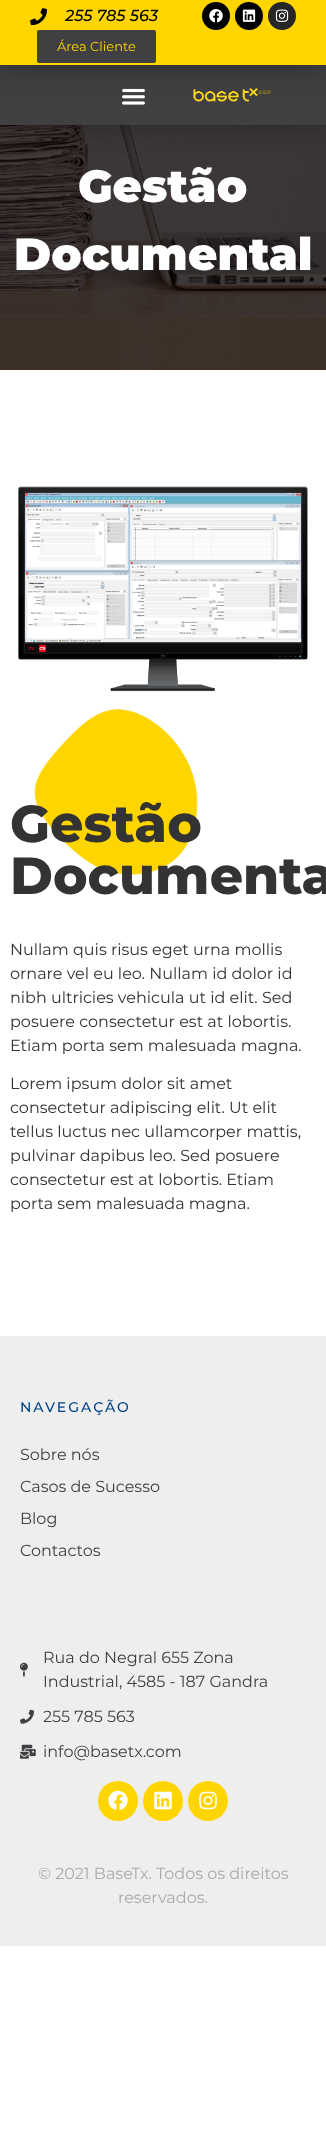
<svg xmlns="http://www.w3.org/2000/svg" width="326" height="2145" viewBox="0 0 326 2145">
  <style>
    .t1 { font: italic 500 16px Montserrat; fill: #000; }
    .t2 { font: 13px Montserrat; fill: #ffd500; }
    .t3 { font: 900 45px Montserrat; fill: #fff; }
    .t4 { font: 800 52px Montserrat; fill: #333; }
    .t5 { font: 16px Montserrat; fill: #333; }
    .t6 { font: 500 14px Montserrat; letter-spacing: 2px; fill: #014188; }
    .t7 { font: 16px Montserrat; fill: #403f43; }
    .t8 { font: 16px Montserrat; fill: #aaa; }
  </style>
  <rect width="100%" height="100%" fill="#fff"/>
  <image x="0" y="125" width="326" height="245" href="images/7.png"/>
  <rect x="0" y="65" width="326" height="60" fill="#0000004d" filter="blur(15px)"/>
  <rect x="0" y="65" width="326" height="60" fill="#403f42"/>
  <image x="122" y="88" width="23" height="17" href="images/5.png"/>
  <image x="193" y="88" width="78" height="14" href="images/6.png"/>
  <rect x="0" y="2" width="326" height="65" fill="#0000004d" filter="blur(15px)"/>
  <rect x="0" y="0" width="326" height="65" fill="#ffd500"/>
  <image x="30" y="8" width="17" height="18" href="images/1.png"/>
  <text x="65" y="21" class="t1">255 785 563</text>
  <circle cx="216" cy="16" r="14" fill="#000"/>
  <image x="209" y="9" width="14" height="14" href="images/2.png"/>
  <circle cx="249" cy="16" r="14" fill="#000"/>
  <image x="242" y="9" width="14" height="13" href="images/3.png"/>
  <circle cx="282" cy="16" r="14" fill="#262626"/>
  <image x="275" y="9" width="14" height="13" href="images/4.png"/>
  <rect x="37" y="30" width="119" height="33" rx="2" fill="#403f42"/>
  <text x="57" y="51" class="t2">Área Cliente</text>
  <text x="78" y="202" class="t3">Gestão</text>
  <text x="14" y="270" class="t3">Documental</text>
  <image x="18" y="486" width="290" height="206" href="images/8.png"/>
  <image x="34" y="709" width="164" height="166" href="images/9.png"/>
  <text x="10" y="842" class="t4">Gestão</text>
  <text x="10" y="894" class="t4">Documenta</text>
  <text x="10" y="955" class="t5">Nullam quis risus eget urna mollis</text>
  <text x="10" y="979" class="t5">ornare vel eu leo. Nullam id dolor id</text>
  <text x="10" y="1003" class="t5">nibh ultricies vehicula ut id elit. Sed</text>
  <text x="10" y="1027" class="t5">posuere consectetur est at lobortis.</text>
  <text x="10" y="1051" class="t5">Etiam porta sem malesuada magna.</text>
  <text x="10" y="1089" class="t5">Lorem ipsum dolor sit amet</text>
  <text x="10" y="1113" class="t5">consectetur adipiscing elit. Ut elit</text>
  <text x="10" y="1137" class="t5">tellus luctus nec ullamcorper mattis,</text>
  <text x="10" y="1161" class="t5">pulvinar dapibus leo. Sed posuere</text>
  <text x="10" y="1185" class="t5">consectetur est at lobortis. Etiam</text>
  <text x="10" y="1209" class="t5">porta sem malesuada magna.</text>
  <rect x="0" y="1336" width="326" height="610" fill="#eee"/>
  <text x="20" y="1412" class="t6">NAVEGAÇÃO</text>
  <text x="20" y="1460" class="t7">Sobre nós</text>
  <text x="20" y="1492" class="t7">Casos de Sucesso</text>
  <text x="20" y="1524" class="t7">Blog</text>
  <text x="20" y="1556" class="t7">Contactos</text>
  <image x="20" y="1662" width="8" height="15" href="images/10.png"/>
  <text x="43" y="1663" class="t7">Rua do Negral 655 Zona</text>
  <text x="43" y="1687" class="t7">Industrial, 4585 - 187 Gandra</text>
  <image x="20" y="1709" width="14" height="15" href="images/11.png"/>
  <text x="43" y="1722" class="t7">255 785 563</text>
  <image x="20" y="1744" width="16" height="15" href="images/12.png"/>
  <text x="43" y="1757" class="t7">info@basetx.com</text>
  <circle cx="118" cy="1801" r="20" fill="#ffd500"/>
  <image x="108" y="1790" width="20" height="20" href="images/13.png"/>
  <circle cx="163" cy="1801" r="20" fill="#ffd500"/>
  <image x="154" y="1791" width="18" height="19" href="images/14.png"/>
  <circle cx="208" cy="1801" r="20" fill="#ffd500"/>
  <image x="199" y="1791" width="18" height="19" href="images/15.png"/>
  <text x="38" y="1879" class="t8">© 2021 BaseTx. Todos os direitos</text>
  <text x="118" y="1903" class="t8">reservados.</text>
</svg>
